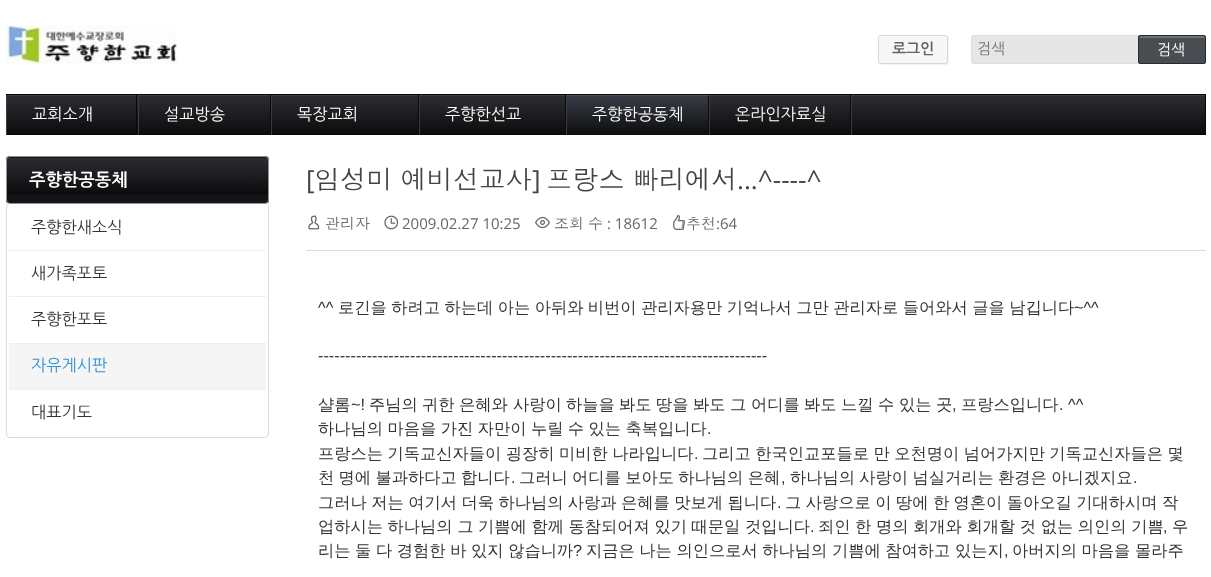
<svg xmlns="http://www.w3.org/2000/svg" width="1211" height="577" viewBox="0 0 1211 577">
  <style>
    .t1 { font: bold 15px NanumGothic; fill: #666; }
    .t2 { font: 15px NanumGothic; fill: #757575; }
    .t3 { font: 15px NanumGothic; fill: #fff; }
    .t4 { font: 16.25px NanumGothic; fill: #fff; }
    .t5 { font: bold 17.5px NanumGothic; fill: #fff; }
    .t6 { font: 16.25px NanumGothic; fill: #333; }
    .t7 { font: 16.25px NanumGothic; fill: #3192d7; }
    .t8 { font: 26.25px Open Sans; fill: #444; }
    .t9 { font: 26.25px Dotum; fill: #444; }
    .t10 { font: 15px Dotum; fill: #666; }
    .t11 { font: 15px Open Sans; fill: #666; }
    .t12 { font: 16.25px Liberation Sans; fill: #333; }
    .t13 { font: 500 16.25px WenQuanYi Zen Hei; fill: #333; }
  </style>
  <defs>
    <linearGradient id="g1" gradientUnits="userSpaceOnUse" x1="606" y1="95" x2="606" y2="134"><stop offset="0" stop-color="#2e2d32"/><stop offset="1" stop-color="#0c0c0e"/></linearGradient>
    <linearGradient id="g2" gradientUnits="userSpaceOnUse" x1="638" y1="96" x2="638" y2="135"><stop offset="0" stop-color="#383c45" stop-opacity="0.98"/><stop offset="1" stop-color="#0c0d0f" stop-opacity="0.98"/></linearGradient>
    <clipPath id="clip1"><rect x="6" y="156" width="263" height="48" rx="4"/></clipPath>
    <linearGradient id="g3" gradientUnits="userSpaceOnUse" x1="138" y1="112" x2="138" y2="158"><stop offset="0" stop-color="#2d2c31"/><stop offset="0.8" stop-color="#0c0c0e"/><stop offset="0.8" stop-color="#131418"/></linearGradient>
    <linearGradient id="g4" gradientUnits="userSpaceOnUse" x1="138" y1="157" x2="138" y2="203"><stop offset="0" stop-color="#2d2c31"/><stop offset="0.8" stop-color="#0c0c0e"/><stop offset="0.8" stop-color="#131418"/></linearGradient>
  </defs>
  <rect width="100%" height="100%" fill="#fff"/>
  <image x="6" y="25" width="171" height="40" href="images/1.png"/>
  <path d="M879 64C880 64 881 65 882 65H946C948 65 949 64 949 62V38C949 37 948 36 947 36C948 38 948 47 948 49C948 66 951 64 934 64Z" fill="#f3f3f3"/>
  <rect x="878.5" y="35.5" width="69" height="28" rx="2" fill="#f7f7f7" stroke="#d4d8db"/>
  <text x="892" y="54" class="t1">로그인</text>
  <rect x="971.5" y="35.5" width="169" height="28" rx="2" fill="#e5e6e8" stroke="#dedede"/>
  <text x="977" y="54" class="t2">검색</text>
  <rect x="1138" y="35" width="68" height="29" rx="2.5" fill="#484d51"/>
  <path d="M1140 38H1204L1205 39C1205 33 1201 36 1193 36H1151C1143 36 1139 33 1139 39C1139 38 1139 38 1140 38Z" fill="#6d7174"/>
  <rect x="1138.5" y="35.5" width="67" height="28" rx="2" fill="none" stroke="#272b30"/>
  <text x="1157" y="55" class="t3">검색</text>
  <rect x="7" y="95" width="1198" height="39" fill="url(#g1)"/>
  <rect x="6.5" y="94.5" width="1199" height="40" fill="none" stroke="#080808"/>
  <rect x="8" y="95" width="1197" height="1" fill="#3e3e40"/>
  <rect x="138" y="95" width="1" height="40" fill="#3e3e40fa"/>
  <rect x="6" y="95" width="1" height="40" fill="#3d3d3f"/>
  <text x="32" y="120" class="t4">교회소개</text>
  <rect x="136" y="95" width="1" height="40" fill="#080808fa"/>
  <rect x="271" y="95" width="1" height="40" fill="#3e3e40fa"/>
  <text x="164" y="120" class="t4">설교방송</text>
  <rect x="270" y="95" width="1" height="40" fill="#080808fa"/>
  <rect x="419" y="95" width="1" height="40" fill="#3e3e40fa"/>
  <text x="297" y="120" class="t4">목장교회</text>
  <rect x="418" y="95" width="1" height="40" fill="#080808fa"/>
  <rect x="566" y="95" width="1" height="40" fill="#3e3e40fa"/>
  <text x="445" y="120" class="t4">주향한선교</text>
  <rect x="565" y="95" width="1" height="40" fill="#080808fa"/>
  <rect x="566" y="96" width="144" height="39" fill="url(#g2)"/>
  <rect x="566" y="95" width="144" height="1" fill="#4a505b"/>
  <rect x="709" y="95" width="1" height="40" fill="#3e3e40fa"/>
  <rect x="566" y="95" width="1" height="40" fill="#3e3e40fa"/>
  <text x="592" y="120" class="t4">주향한공동체</text>
  <rect x="708" y="96" width="1" height="39" fill="#080808fa"/>
  <rect x="851" y="95" width="1" height="40" fill="#3e3e40fa"/>
  <text x="735" y="120" class="t4">온라인자료실</text>
  <rect x="850" y="95" width="1" height="40" fill="#080808fa"/>
  <g clip-path="url(#clip1)">
    <rect x="6" y="156" width="263" height="2" fill="url(#g3)"/>
    <rect x="6" y="158" width="263" height="45" fill="url(#g4)"/>
  </g>
  <rect x="6.5" y="203.5" width="262" height="234" rx="3.5" fill="none" stroke="#dcdcdc"/>
  <rect x="6.5" y="156.5" width="262" height="47" rx="3.5" fill="none" stroke="#939395"/>
  <text x="29" y="186" class="t5">주향한공동체</text>
  <text x="31" y="233" class="t6">주향한새소식</text>
  <rect x="9" y="250" width="257" height="1" fill="#eee"/>
  <text x="31" y="279" class="t6">새가족포토</text>
  <rect x="9" y="296" width="257" height="1" fill="#eee"/>
  <text x="31" y="325" class="t6">주향한포토</text>
  <rect x="9" y="344" width="257" height="45" fill="#f5f5f5"/>
  <rect x="9" y="343" width="257" height="1" fill="#eee"/>
  <text x="31" y="371" class="t7">자유게시판</text>
  <rect x="9" y="389" width="257" height="1" fill="#eee"/>
  <text x="31" y="418" class="t6">대표기도</text>
  <text x="306" y="189" class="t8">[</text>
  <text x="314" y="189" word-spacing="-1" class="t9">임성미 예비선교사</text>
  <text x="532" y="189" class="t8">]</text>
  <text x="546" y="189" word-spacing="-1" class="t9">프랑스 빠리에서</text>
  <text x="737" y="189" class="t8">...^----^</text>
  <rect x="306" y="250" width="900" height="1" fill="#ddd"/>
  <image x="308" y="215" width="12" height="15" href="images/2.png"/>
  <text x="325" y="229" class="t10">관리자</text>
  <image x="384" y="215" width="15" height="15" href="images/3.png"/>
  <text x="402" y="229" class="t11">2009.02.27 10:25</text>
  <image x="535" y="216" width="15" height="13" href="images/4.png"/>
  <text x="554" y="229" class="t10">조회</text>
  <text x="588" y="229" class="t10">수</text>
  <text x="607" y="229" class="t11">: 18612</text>
  <image x="673" y="215" width="12" height="15" href="images/5.png"/>
  <text x="686" y="229" class="t10">추천</text>
  <text x="716" y="229" class="t11">:64</text>
  <text x="318" y="313" class="t12">^^</text>
  <text x="338" y="313" word-spacing="-0.4" class="t13">로긴을 하려고 하는데 아는 아뒤와 비번이 관리자용만 기억나서 그만 관리자로 들어와서 글을 남깁니다</text>
  <text x="1074" y="313" class="t12">~^^</text>
  <text x="318" y="361" class="t12">-----------------------------------------------------------------------------------</text>
  <text x="318" y="410" class="t13">샬롬</text>
  <text x="351" y="410" class="t12">~!</text>
  <text x="369" y="410" class="t13">주님의</text>
  <text x="422" y="410" class="t13">귀한</text>
  <text x="459" y="410" class="t13">은혜와</text>
  <text x="513" y="410" class="t13">사랑이</text>
  <text x="566" y="410" class="t13">하늘을</text>
  <text x="619" y="410" class="t13">봐도</text>
  <text x="656" y="410" class="t13">땅을</text>
  <text x="693" y="410" class="t13">봐도</text>
  <text x="730" y="410" class="t13">그</text>
  <text x="751" y="410" class="t13">어디를</text>
  <text x="804" y="410" class="t13">봐도</text>
  <text x="841" y="410" class="t13">느낄</text>
  <text x="878" y="410" class="t13">수</text>
  <text x="899" y="410" class="t13">있는</text>
  <text x="936" y="410" class="t13">곳</text>
  <text x="952" y="410" class="t12">,</text>
  <text x="961" y="410" class="t13">프랑스입니다</text>
  <text x="1059" y="410" class="t12">. ^^</text>
  <text x="318" y="434" word-spacing="-0.4" class="t13">하나님의 마음을 가진 자만이 누릴 수 있는 축복입니다</text>
  <text x="707" y="434" class="t12">.</text>
  <text x="318" y="459" word-spacing="-0.4" class="t13">프랑스는 기독교신자들이 굉장히 미비한 나라입니다</text>
  <text x="694" y="459" class="t12">.</text>
  <text x="702" y="459" word-spacing="-0.4" class="t13">그리고 한국인교포들로 만 오천명이 넘어가지만 기독교신자들은 몇</text>
  <text x="318" y="483" word-spacing="-0.5" class="t13">천 명에 불과하다고 합니다</text>
  <text x="511" y="483" class="t12">.</text>
  <text x="519" y="483" word-spacing="-0.5" class="t13">그러니 어디를 보아도 하나님의 은혜</text>
  <text x="781" y="483" class="t12">,</text>
  <text x="790" y="483" word-spacing="-0.5" class="t13">하나님의 사랑이 넘실거리는 환경은 아니겠지요</text>
  <text x="1133" y="483" class="t12">.</text>
  <text x="318" y="508" word-spacing="-0.4" class="t13">그러나 저는 여기서 더욱 하나님의 사랑과 은혜를 맛보게 됩니다</text>
  <text x="777" y="508" class="t12">.</text>
  <text x="785" y="508" word-spacing="-0.4" class="t13">그 사랑으로 이 땅에 한 영혼이 돌아오길 기대하시며 작</text>
  <text x="318" y="532" word-spacing="-0.25" class="t13">업하시는 하나님의 그 기쁨에 함께 동참되어져 있기 때문일 것입니다</text>
  <text x="810" y="532" class="t12">.</text>
  <text x="818" y="532" word-spacing="-0.25" class="t13">죄인 한 명의 회개와 회개할 것 없는 의인의 기쁨</text>
  <text x="1163" y="532" class="t12">,</text>
  <text x="1172" y="532" class="t13">우</text>
  <text x="318" y="556" word-spacing="-0.25" class="t13">리는 둘 다 경험한 바 있지 않습니까</text>
  <text x="573" y="556" class="t12">?</text>
  <text x="586" y="556" word-spacing="-0.25" class="t13">지금은 나는 의인으로서 하나님의 기쁨에 참여하고 있는지</text>
  <text x="1012" y="556" word-spacing="-0.25" class="t13">아버지의 마음을 몰라주</text>
  <text x="1004" y="556" class="t12">,</text>
</svg>
